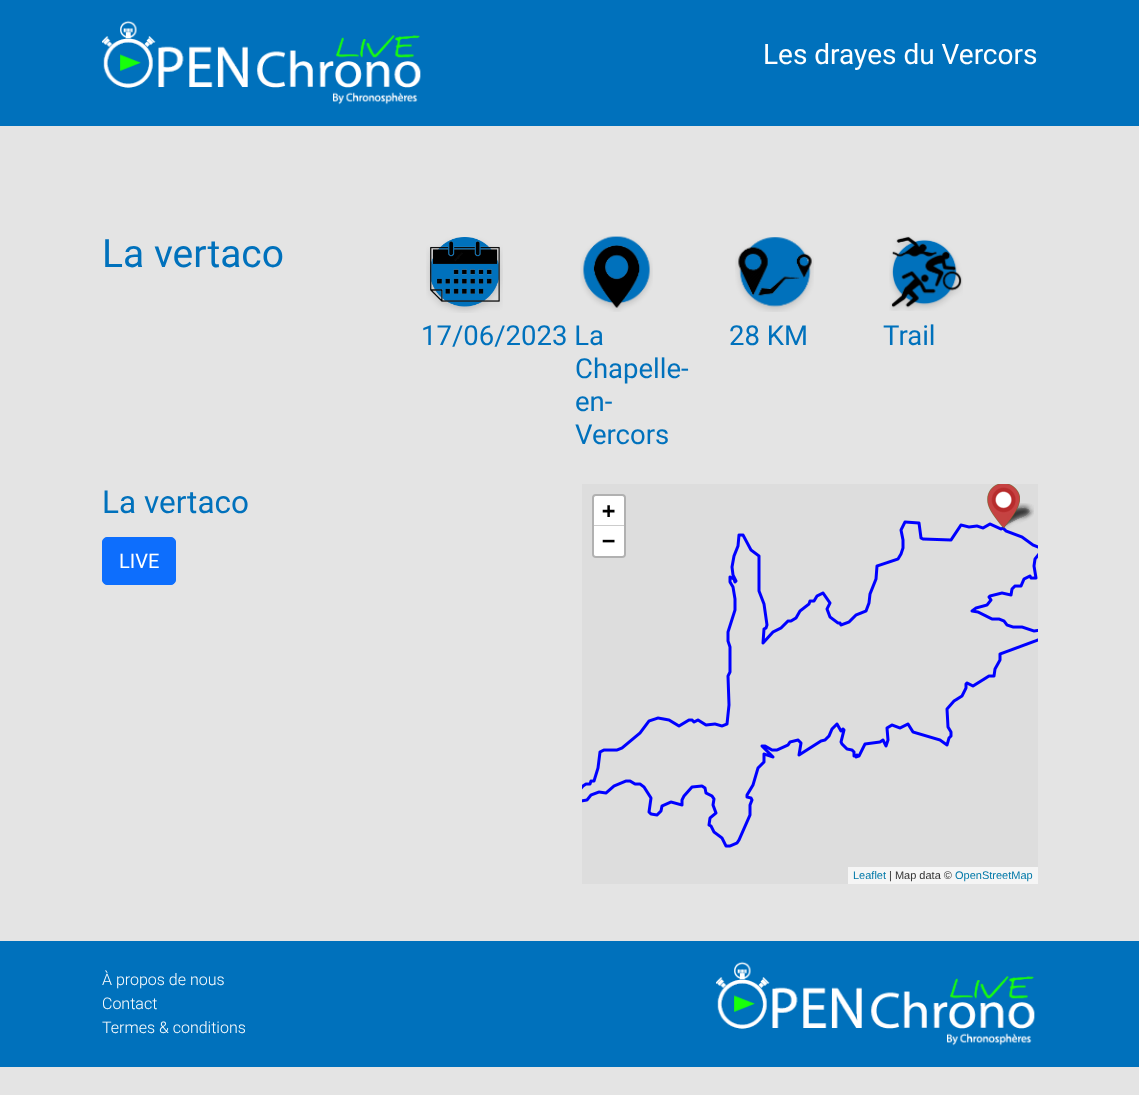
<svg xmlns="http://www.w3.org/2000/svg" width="1139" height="1095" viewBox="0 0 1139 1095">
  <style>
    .t1 { font: 28px Roboto; fill: #fff; }
    .t2 { font: 39px Roboto; fill: #0071bc; }
    .t3 { font: 27.5px Roboto; fill: #0071bc; }
    .t4 { font: 31.5px Roboto; fill: #0071bc; }
    .t5 { font: 20px Roboto; fill: #fff; }
    .t6 { font: bold 22px DejaVu Sans Mono; fill: #000; }
    .t7 { font: 11px Liberation Sans; fill: #0078a8; }
    .t8 { font: 11px Liberation Sans; fill: #333; }
    .t9 { font: 300 16px Roboto; fill: #fff; }
  </style>
  <rect width="100%" height="100%" fill="#e4e4e4"/>
  <rect x="0" y="0" width="1139" height="126" fill="#0071bc"/>
  <image x="102" y="20" width="319" height="85" href="images/1.png"/>
  <text x="763" y="64" class="t1">Les drayes du Vercors</text>
  <text x="102" y="267" class="t2">La vertaco</text>
  <image x="426" y="237" width="77" height="76" href="images/2.png"/>
  <text x="421" y="345" class="t3">17/06/2023 La</text>
  <image x="735" y="237" width="79" height="75" href="images/3.png"/>
  <text x="729" y="345" class="t3">28 KM</text>
  <image x="889" y="236" width="74" height="75" href="images/4.png"/>
  <text x="883" y="345" class="t3">Trail</text>
  <image x="580" y="236" width="73" height="76" href="images/5.png"/>
  <text x="575" y="378" class="t3">Chapelle-</text>
  <text x="575" y="411" class="t3">en-</text>
  <text x="575" y="444" class="t3">Vercors</text>
  <text x="102" y="513" class="t4">La vertaco</text>
  <rect x="102.5" y="537.5" width="73" height="47" rx="4.5" fill="#0d6efd" stroke="#0d6efd"/>
  <text x="119" y="568" class="t5">LIVE</text>
  <rect x="582" y="484" width="456" height="400" fill="#ddd"/>
  <image x="582" y="520" width="456" height="328" href="images/10.png"/>
  <image x="1001" y="503" width="33" height="26" href="images/8.png"/>
  <image x="1001" y="503" width="33" height="26" href="images/9.png"/>
  <image x="987" y="484" width="33" height="44" href="images/6.png"/>
  <image x="987" y="484" width="33" height="44" href="images/7.png"/>
  <rect x="593" y="495" width="32" height="62" rx="3" fill="none" stroke="#b1b1b1" stroke-width="2"/>
  <path d="M596 496H622C623 496 624 497 624 498V526H594V498C594 497 595 496 596 496Z" fill="#fff"/>
  <rect x="594" y="525" width="30" height="1" fill="#ccc"/>
  <text x="602" y="518" class="t6">+</text>
  <path d="M594 526H624V554C624 555 623 556 622 556H596C595 556 594 555 594 554Z" fill="#fff"/>
  <text x="602" y="548" class="t6">−</text>
  <rect x="848" y="867" width="190" height="17" fill="#f5f5f5"/>
  <text x="853" y="879" class="t7">Leaflet</text>
  <text x="889" y="879" class="t8">| Map data ©</text>
  <text x="955" y="879" class="t7">OpenStreetMap</text>
  <rect x="0" y="941" width="1139" height="126" fill="#0071bc"/>
  <text x="102" y="985" class="t9">À propos de nous</text>
  <text x="102" y="1009" class="t9">Contact</text>
  <text x="102" y="1033" class="t9">Termes &amp; conditions</text>
  <image x="716" y="961" width="319" height="85" href="images/1.png"/>
</svg>
